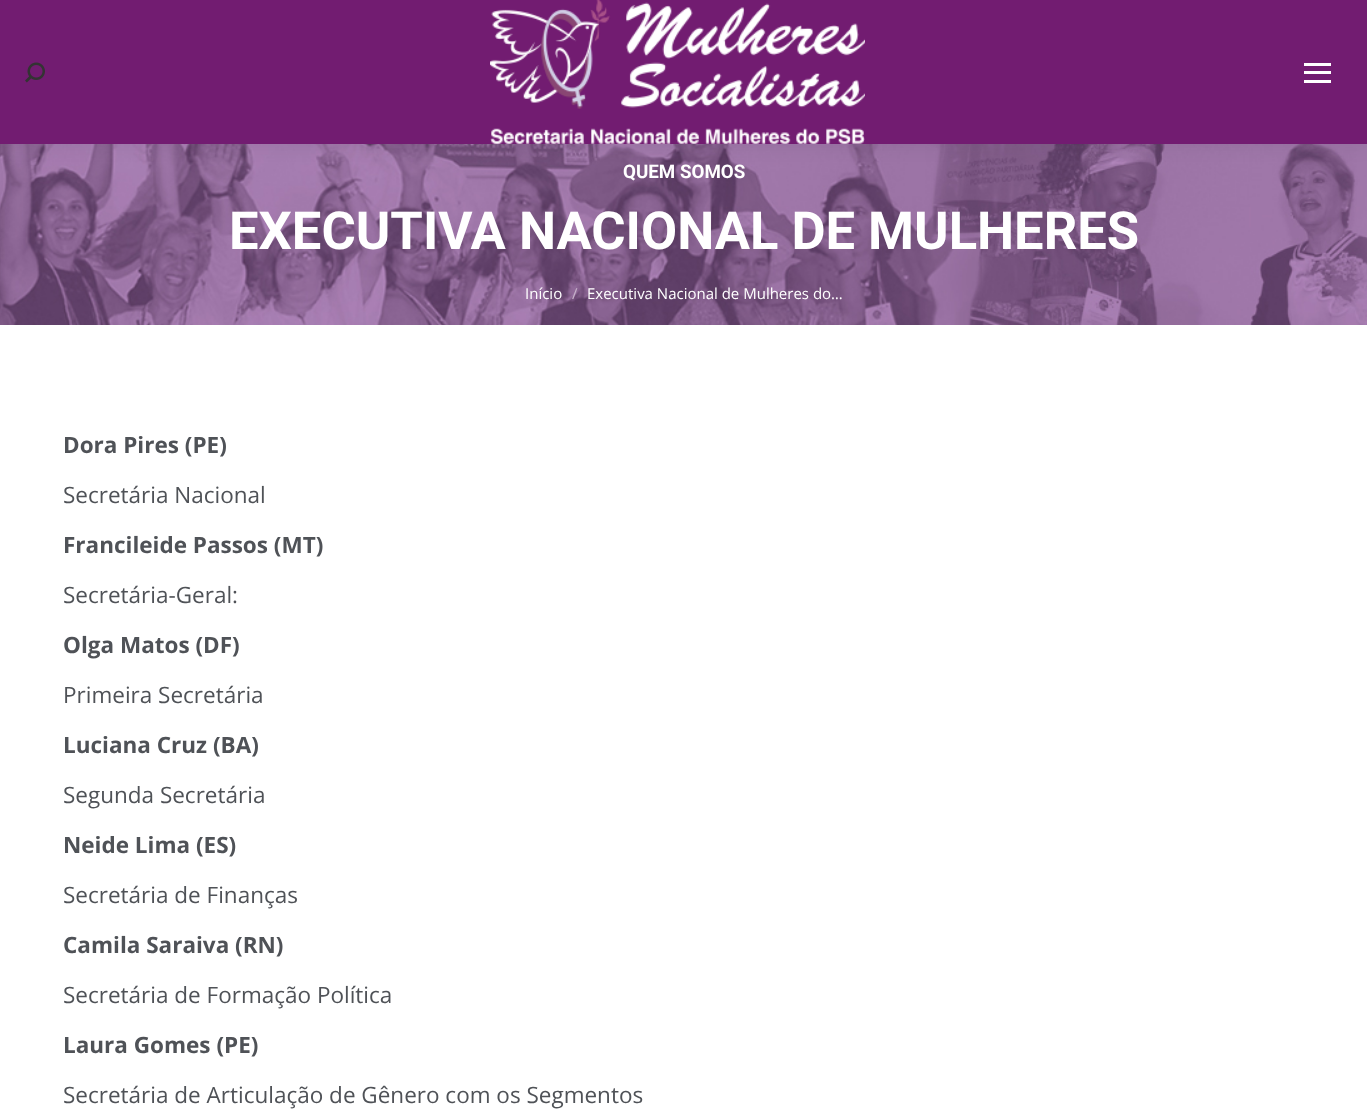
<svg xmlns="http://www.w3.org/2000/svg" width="1367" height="1110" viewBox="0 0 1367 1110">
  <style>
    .t1 { font: bold 18.75px Roboto; fill: #fff; }
    .t2 { font: bold 52.5px Roboto; fill: #fff; }
    .t3 { font: 15px Open Sans; fill: #fff; }
    .t4 { font: 15px Open Sans; fill: #c6b3ca; }
    .t5 { font: bold 22.5px Open Sans; fill: #4f5257; }
    .t6 { font: 22.5px Open Sans; fill: #4f5257; }
  </style>
  <rect width="100%" height="100%" fill="#fff"/>
  <image x="0" y="144" width="1367" height="181" href="images/3.png"/>
  <rect x="-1" y="-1" width="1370" height="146" fill="#00000012" filter="blur(9.5px)"/>
  <rect x="0" y="0" width="1367" height="144" fill="#721c71"/>
  <image x="25" y="62" width="20" height="21" href="images/1.png"/>
  <image x="490" y="0" width="375" height="144" href="images/2.png"/>
  <rect x="1304" y="63" width="27" height="3" fill="#fff"/>
  <rect x="1304" y="71" width="27" height="3" fill="#fff"/>
  <rect x="1304" y="80" width="27" height="3" fill="#fff"/>
  <text x="623" y="178" class="t1">QUEM SOMOS</text>
  <text x="229" y="249" class="t2">EXECUTIVA NACIONAL DE MULHERES</text>
  <text x="525" y="299" class="t3">Início</text>
  <text x="572" y="299" class="t4">/</text>
  <text x="587" y="299" class="t3">Executiva Nacional de Mulheres do…</text>
  <text x="63" y="453" class="t5">Dora Pires (PE)</text>
  <text x="63" y="503" class="t6">Secretária Nacional</text>
  <text x="63" y="553" class="t5">Francileide Passos (MT)</text>
  <text x="63" y="603" class="t6">Secretária-Geral:</text>
  <text x="63" y="653" class="t5">Olga Matos (DF)</text>
  <text x="63" y="703" class="t6">Primeira Secretária</text>
  <text x="63" y="753" class="t5">Luciana Cruz (BA)</text>
  <text x="63" y="803" class="t6">Segunda Secretária</text>
  <text x="63" y="853" class="t5">Neide Lima (ES)</text>
  <text x="63" y="903" class="t6">Secretária de Finanças</text>
  <text x="63" y="953" class="t5">Camila Saraiva (RN)</text>
  <text x="63" y="1003" class="t6">Secretária de Formação Política</text>
  <text x="63" y="1053" class="t5">Laura Gomes (PE)</text>
  <text x="63" y="1103" class="t6">Secretária de Articulação de Gênero com os Segmentos</text>
</svg>
